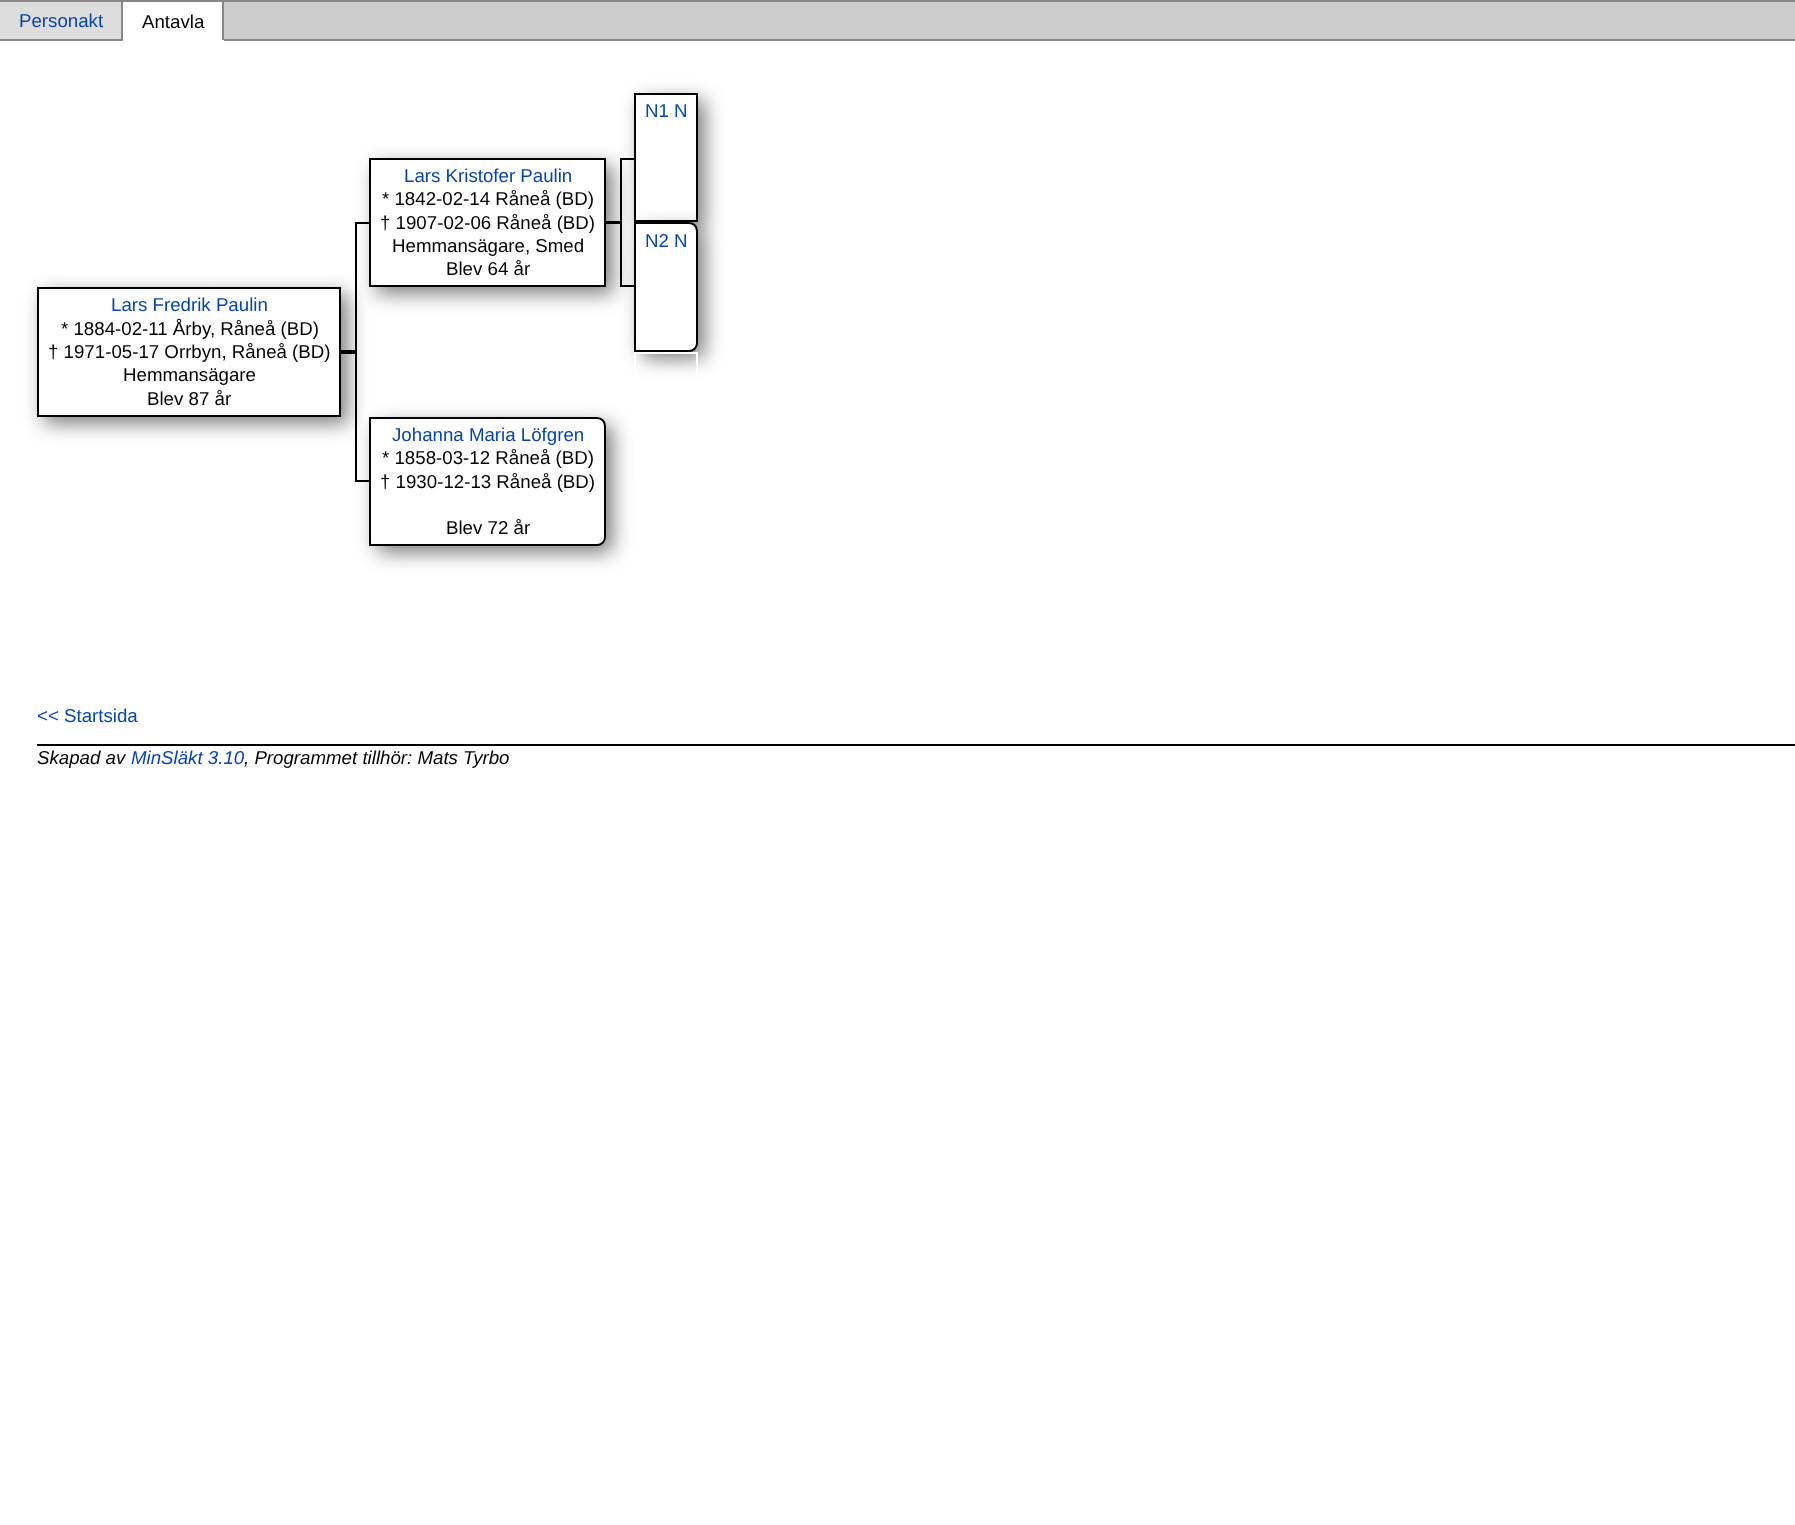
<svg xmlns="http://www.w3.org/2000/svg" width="1795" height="1525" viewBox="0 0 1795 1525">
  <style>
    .t1 { font: 18.7px Liberation Sans; fill: #0645ad; }
    .t2 { font: 18.7px Liberation Sans; fill: #000; }
    .t3 { font: italic 18.7px Liberation Sans; fill: #000; }
    .t4 { font: italic 18.7px Liberation Sans; fill: #0645ad; }
  </style>
  <defs>
    <clipPath id="clip1"><path d="M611 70H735V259H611ZM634 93H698V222H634Z" clip-rule="evenodd"/></clipPath>
  </defs>
  <rect width="100%" height="100%" fill="#fff"/>
  <rect x="0" y="2" width="121" height="37" fill="#ddd"/>
  <rect x="0" y="0" width="1795" height="2" fill="#888"/>
  <rect x="121" y="0" width="2" height="40" fill="#888"/>
  <rect x="0" y="39" width="123" height="2" fill="#888"/>
  <text x="19" y="27" class="t1">Personakt</text>
  <rect x="222" y="0" width="2" height="40" fill="#888"/>
  <text x="142" y="28" class="t2">Antavla</text>
  <rect x="224" y="2" width="1571" height="37" fill="#ccc"/>
  <rect x="224" y="39" width="1571" height="2" fill="#888"/>
  <rect x="376" y="165" width="237" height="129" fill="#00000080" filter="blur(9.5px)"/>
  <rect x="606" y="221" width="14" height="1" fill="#000"/>
  <g clip-path="url(#clip1)">
    <rect x="641" y="100" width="64" height="129" fill="#00000080" filter="blur(9.5px)"/>
  </g>
  <rect x="635" y="94" width="62" height="127" fill="none" stroke="#000" stroke-width="2"/>
  <text x="645" y="117" class="t1">N1 N</text>
  <rect x="44" y="294" width="304" height="130" fill="#00000080" filter="blur(9.5px)"/>
  <rect x="370" y="159" width="235" height="127" fill="#fff" stroke="#000" stroke-width="2"/>
  <text x="404" y="182" class="t1">Lars Kristofer Paulin</text>
  <text x="382" y="205" class="t2">* 1842-02-14 Råneå (BD)</text>
  <text x="380" y="229" class="t2">† 1907-02-06 Råneå (BD)</text>
  <text x="392" y="252" class="t2">Hemmansägare, Smed</text>
  <text x="446" y="275" class="t2">Blev 64 år</text>
  <rect x="38" y="288" width="302" height="128" fill="#fff" stroke="#000" stroke-width="2"/>
  <text x="111" y="311" class="t1">Lars Fredrik Paulin</text>
  <text x="61" y="335" class="t2">* 1884-02-11 Årby, Råneå (BD)</text>
  <text x="48" y="358" class="t2">† 1971-05-17 Orrbyn, Råneå (BD)</text>
  <text x="123" y="381" class="t2">Hemmansägare</text>
  <text x="147" y="405" class="t2">Blev 87 år</text>
  <rect x="341" y="350" width="14" height="4" fill="#000"/>
  <rect x="620" y="158" width="14" height="2" fill="#000"/>
  <rect x="620" y="158" width="2" height="64" fill="#000"/>
  <rect x="355" y="222" width="14" height="2" fill="#000"/>
  <rect x="355" y="222" width="2" height="130" fill="#000"/>
  <rect x="606" y="222" width="14" height="2" fill="#000"/>
  <rect x="620" y="285" width="14" height="2" fill="#000"/>
  <rect x="620" y="222" width="2" height="65" fill="#000"/>
  <rect x="641" y="229" width="64" height="130" rx="9" fill="#00000080" filter="blur(9.5px)"/>
  <path d="M635 223H689C693.5 223 697 226.5 697 231V343C697 347.5 693.5 351 689 351H635Z" fill="#fff" stroke="#000" stroke-width="2"/>
  <text x="645" y="247" class="t1">N2 N</text>
  <rect x="355" y="480" width="14" height="2" fill="#000"/>
  <rect x="355" y="352" width="2" height="129" fill="#000"/>
  <rect x="376" y="424" width="237" height="129" rx="9" fill="#00000080" filter="blur(9.5px)"/>
  <path d="M370 418H597C601.5 418 605 421.5 605 426V537C605 541.5 601.5 545 597 545H370Z" fill="#fff" stroke="#000" stroke-width="2"/>
  <text x="392" y="441" class="t1">Johanna Maria Löfgren</text>
  <text x="382" y="464" class="t2">* 1858-03-12 Råneå (BD)</text>
  <text x="380" y="488" class="t2">† 1930-12-13 Råneå (BD)</text>
  <text x="446" y="534" class="t2">Blev 72 år</text>
  <rect x="635" y="353" width="62" height="127" fill="none" stroke="#fff" stroke-width="2"/>
  <text x="37" y="722" class="t1">&lt;&lt; Startsida</text>
  <rect x="37" y="744" width="1758" height="2" fill="#000"/>
  <text x="37" y="764" class="t3">Skapad av</text>
  <text x="131" y="764" class="t4">MinSläkt 3.10</text>
  <text x="244" y="764" class="t3">, Programmet tillhör: Mats Tyrbo</text>
</svg>
